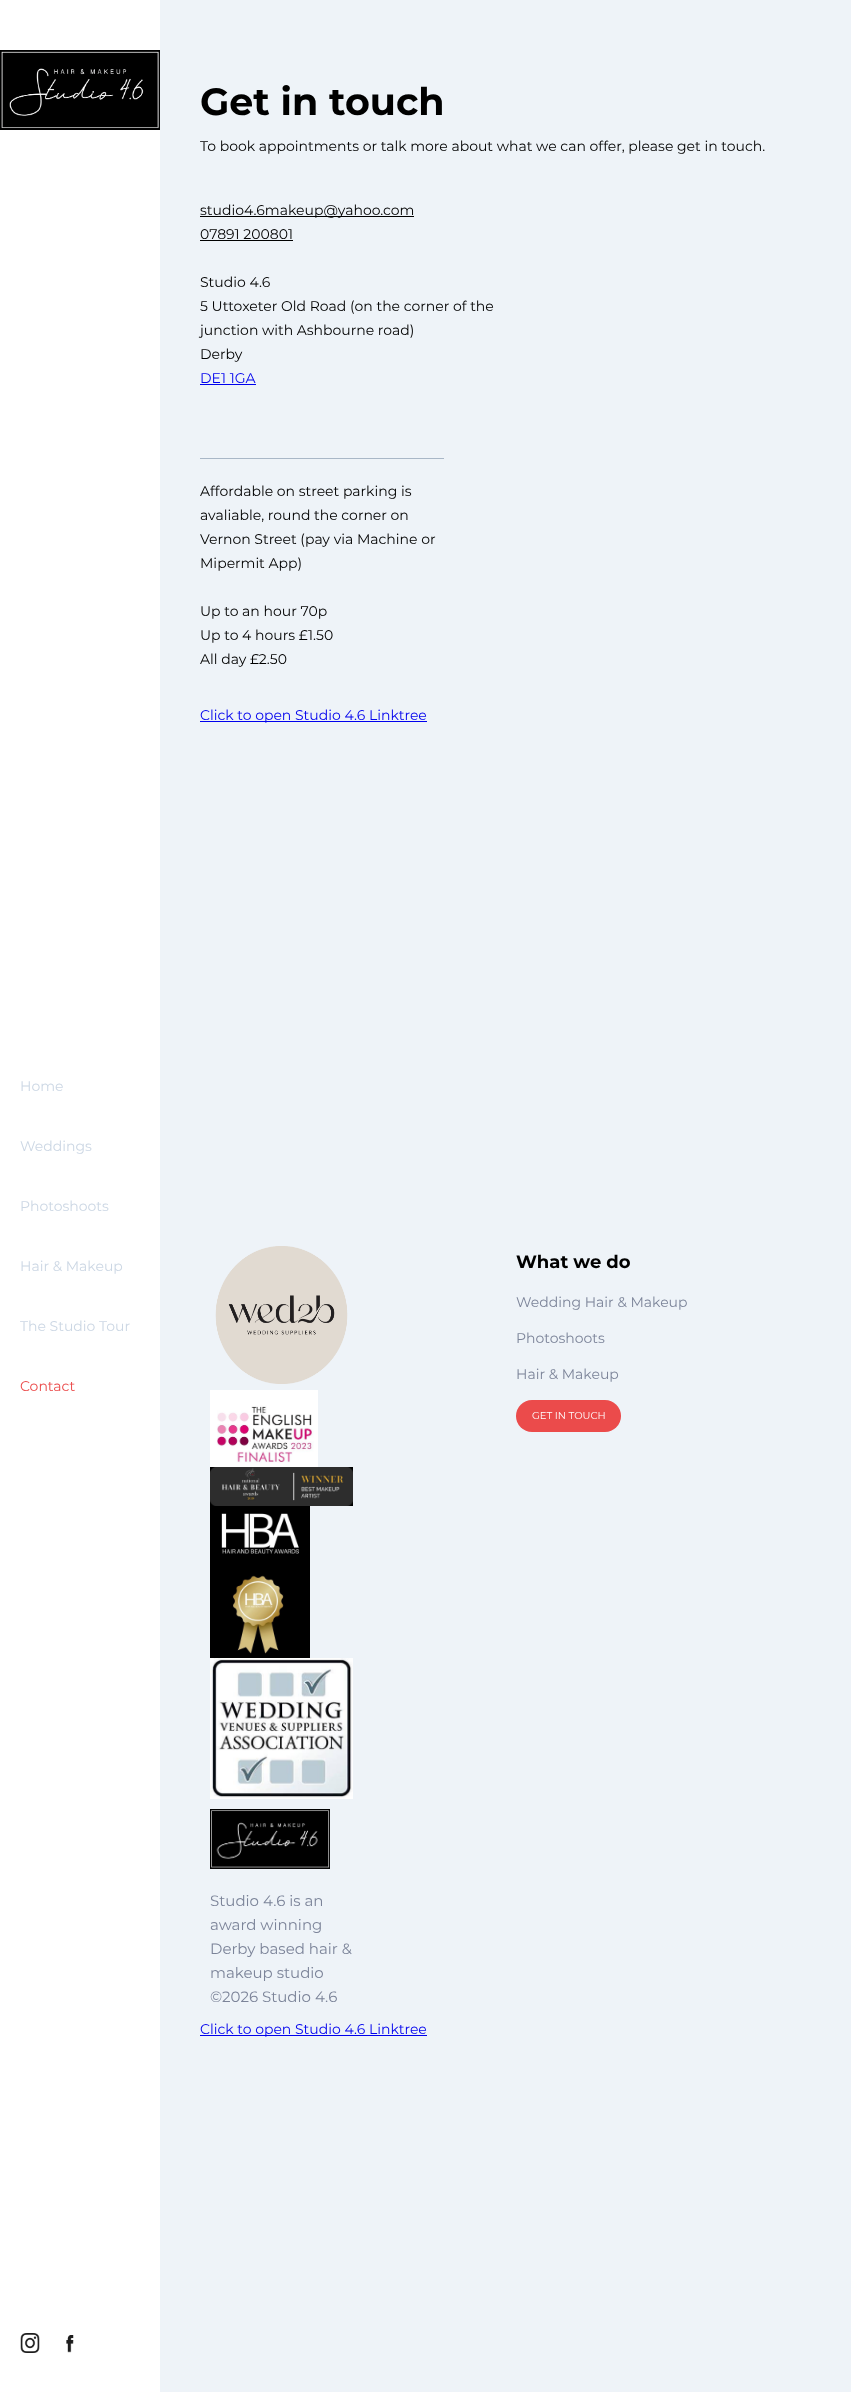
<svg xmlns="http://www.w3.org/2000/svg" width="851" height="2392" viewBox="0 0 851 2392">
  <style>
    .t1 { font: bold 38px Montserrat; fill: #000; }
    .t2 { font: 14px Montserrat; fill: #000; }
    .t3 { font: 14px Montserrat; fill: #00e; }
    .t4 { font: 14px Montserrat; fill: #ccd7e4; }
    .t5 { font: 14px Montserrat; fill: #eb4b4b; }
    .t6 { font: bold 18px Montserrat; fill: #000; }
    .t7 { font: 14px Montserrat; fill: #7c8499; }
    .t8 { font: 10px Montserrat; fill: #fff; }
    .t9 { font: 15px Montserrat; fill: #7c8499; }
  </style>
  <rect width="100%" height="100%" fill="#eef3f8"/>
  <text x="200" y="115" class="t1">Get in touch</text>
  <text x="200" y="151" class="t2">To book appointments or talk more about what we can offer, please get in touch.</text>
  <rect x="200" y="216" width="214" height="1" fill="#000"/>
  <text x="200" y="215" class="t2">studio4.6makeup@yahoo.com</text>
  <text x="200" y="239" class="t2">07891 200801</text>
  <rect x="200" y="240" width="93" height="1" fill="#000"/>
  <text x="200" y="287" class="t2">Studio 4.6</text>
  <text x="200" y="311" class="t2">5 Uttoxeter Old Road (on the corner of the</text>
  <text x="200" y="335" class="t2">junction with Ashbourne road)</text>
  <text x="200" y="359" class="t2">Derby</text>
  <text x="200" y="383" class="t3">DE1 1GA</text>
  <rect x="200" y="384" width="56" height="1" fill="#00e"/>
  <rect x="200" y="458" width="244" height="1" fill="#a9b7c7"/>
  <text x="200" y="496" class="t2">Affordable on street parking is</text>
  <text x="200" y="520" class="t2">avaliable, round the corner on</text>
  <text x="200" y="544" class="t2">Vernon Street (pay via Machine or</text>
  <text x="200" y="568" class="t2">Mipermit App)</text>
  <text x="200" y="616" class="t2">Up to an hour 70p</text>
  <text x="200" y="640" class="t2">Up to 4 hours £1.50</text>
  <text x="200" y="664" class="t2">All day £2.50</text>
  <rect x="200" y="721" width="227" height="1" fill="#00e"/>
  <text x="200" y="720" class="t3">Click to open Studio 4.6 Linktree</text>
  <rect x="0" y="0" width="160" height="2392" fill="#fff"/>
  <image x="0" y="50" width="160" height="80" href="images/1.png"/>
  <text x="20" y="1091" class="t4">Home</text>
  <text x="20" y="1151" class="t4">Weddings</text>
  <text x="20" y="1211" class="t4">Photoshoots</text>
  <text x="20" y="1271" class="t4">Hair &amp; Makeup</text>
  <text x="20" y="1331" class="t4">The Studio Tour</text>
  <text x="20" y="1391" class="t5">Contact</text>
  <image x="20" y="2333" width="20" height="20" href="images/2.png"/>
  <image x="66" y="2335" width="8" height="18" href="images/3.png"/>
  <text x="516" y="1268" class="t6">What we do</text>
  <text x="516" y="1307" class="t7">Wedding Hair &amp; Makeup</text>
  <text x="516" y="1343" class="t7">Photoshoots</text>
  <text x="516" y="1379" class="t7">Hair &amp; Makeup</text>
  <rect x="516" y="1400" width="105" height="32" rx="16" fill="#eb4b4b"/>
  <text x="532" y="1419" class="t8">GET IN TOUCH</text>
  <image x="215" y="1246" width="133" height="138" href="images/4.png"/>
  <image x="210" y="1390" width="108" height="77" href="images/5.png"/>
  <image x="210" y="1467" width="143" height="39" href="images/6.png"/>
  <image x="210" y="1506" width="100" height="152" href="images/7.png"/>
  <image x="210" y="1658" width="143" height="141" href="images/8.png"/>
  <image x="210" y="1809" width="120" height="60" href="images/9.png"/>
  <text x="210" y="1906" class="t9">Studio 4.6 is an</text>
  <text x="210" y="1930" class="t9">award winning</text>
  <text x="210" y="1954" class="t9">Derby based hair &amp;</text>
  <text x="210" y="1978" class="t9">makeup studio</text>
  <text x="210" y="2002" class="t9">©2026 Studio 4.6</text>
  <rect x="200" y="2035" width="227" height="1" fill="#00e"/>
  <text x="200" y="2034" class="t3">Click to open Studio 4.6 Linktree</text>
</svg>
